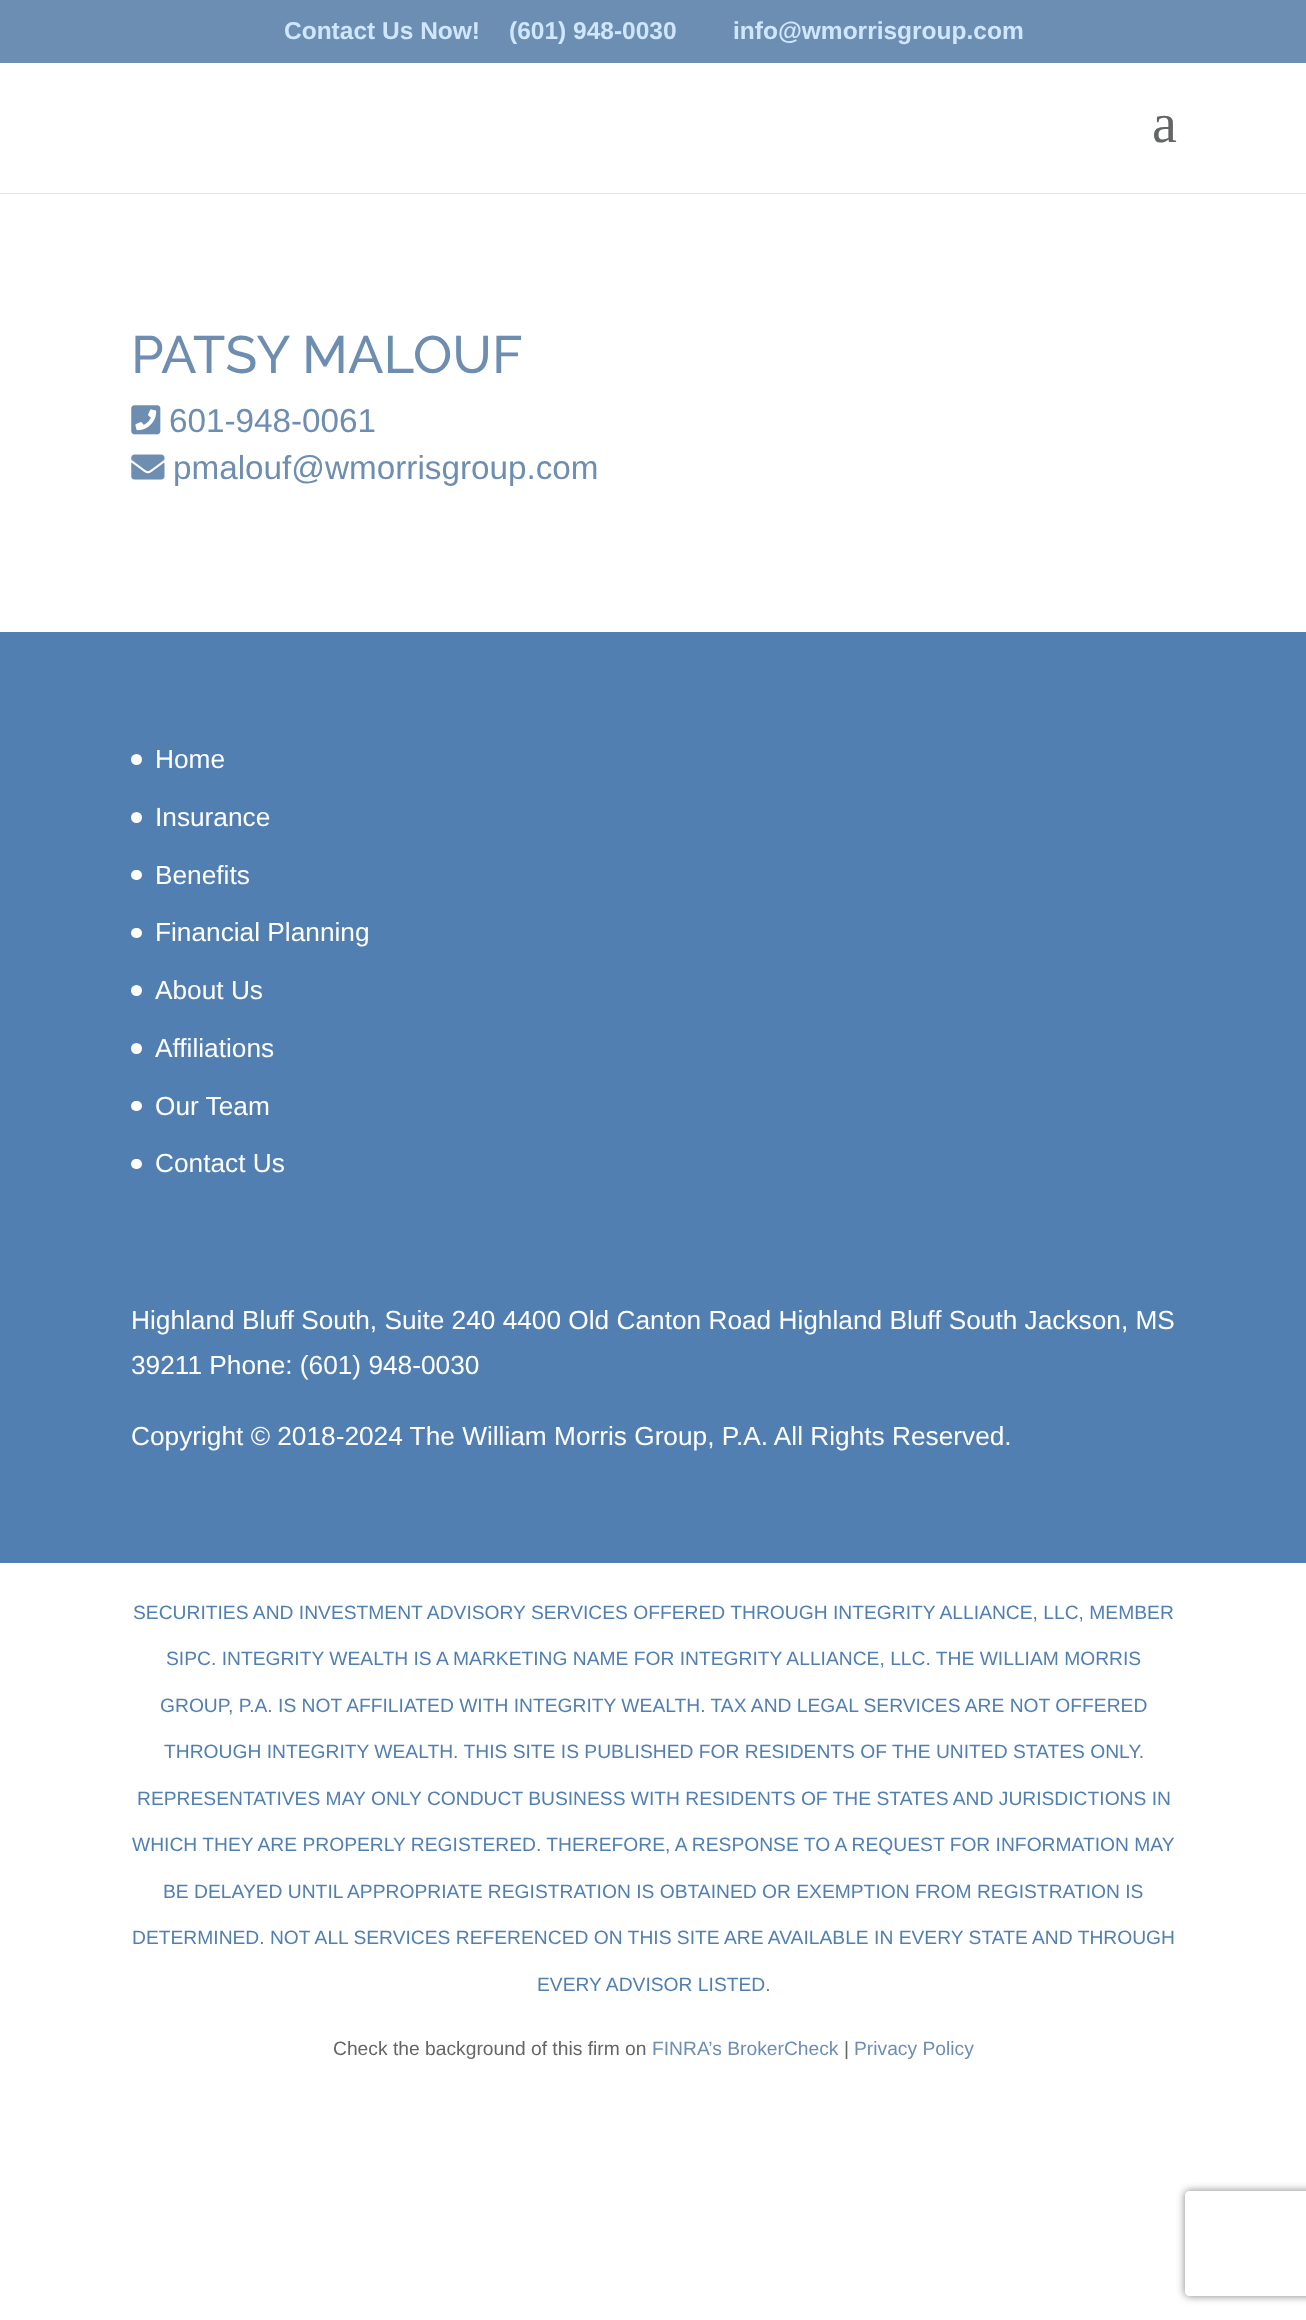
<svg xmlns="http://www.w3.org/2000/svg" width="1306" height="2320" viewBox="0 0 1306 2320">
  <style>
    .t1 { font: bold 24.5px Liberation Sans; fill: #d0e6fd; }
    .t2 { font: 56px Liberation Serif; fill: #646565; }
    .t3 { font: 100 52.5px Raleway; fill: #6d8db1; }
    .t4 { font: 33.25px Liberation Sans; fill: #6d8db1; }
    .t5 { font: 26.25px Liberation Sans; fill: #fff; }
    .t6 { font: 19.25px Liberation Sans; fill: #517fb1; }
    .t7 { font: 19.25px Liberation Sans; fill: #646565; }
    .t8 { font: 19.25px Liberation Sans; fill: #6d8db1; }
  </style>
  <defs>
    <clipPath id="clip1"><path d="M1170 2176H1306V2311H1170ZM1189 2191H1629C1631 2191 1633 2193 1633 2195V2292C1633 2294 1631 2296 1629 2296H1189C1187 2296 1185 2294 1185 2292V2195C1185 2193 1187 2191 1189 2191Z" clip-rule="evenodd"/></clipPath>
  </defs>
  <rect width="100%" height="100%" fill="#fff"/>
  <rect x="0" y="0" width="1306" height="63" fill="#6c8eb2"/>
  <text x="284" y="39" class="t1">Contact Us Now!</text>
  <text x="509" y="39" class="t1">(601) 948-0030</text>
  <text x="733" y="39" class="t1">info@wmorrisgroup.com</text>
  <rect x="0" y="193" width="1306" height="1" fill="#e6e6e6"/>
  <text x="1152" y="142" class="t2">a</text>
  <text x="131" y="373" class="t3">PATSY MALOUF</text>
  <image x="131" y="405" width="30" height="30" href="images/1.png"/>
  <text x="169" y="432" class="t4">601-948-0061</text>
  <image x="131" y="454" width="34" height="26" href="images/2.png"/>
  <text x="173" y="479" class="t4">pmalouf@wmorrisgroup.com</text>
  <rect x="0" y="632" width="1306" height="931" fill="#517fb1"/>
  <circle cx="136.5" cy="759.5" r="5.5" fill="#fff"/>
  <text x="155" y="768" class="t5">Home</text>
  <circle cx="136.5" cy="817.5" r="5.5" fill="#fff"/>
  <text x="155" y="826" class="t5">Insurance</text>
  <rect x="131" y="870" width="11" height="10" rx="5" fill="#fff"/>
  <text x="155" y="884" class="t5">Benefits</text>
  <rect x="131" y="928" width="11" height="10" rx="5" fill="#fff"/>
  <text x="155" y="941" class="t5">Financial Planning</text>
  <circle cx="136.5" cy="990.5" r="5.5" fill="#fff"/>
  <text x="155" y="999" class="t5">About Us</text>
  <circle cx="136.5" cy="1048.5" r="5.5" fill="#fff"/>
  <text x="155" y="1057" class="t5">Affiliations</text>
  <rect x="131" y="1101" width="11" height="10" rx="5" fill="#fff"/>
  <text x="155" y="1115" class="t5">Our Team</text>
  <rect x="131" y="1159" width="11" height="10" rx="5" fill="#fff"/>
  <text x="155" y="1172" class="t5">Contact Us</text>
  <text x="131" y="1329" class="t5">Highland Bluff South, Suite 240 4400 Old Canton Road Highland Bluff South Jackson, MS</text>
  <text x="131" y="1374" class="t5">39211 Phone: (601) 948-0030</text>
  <text x="131" y="1445" class="t5">Copyright © 2018-2024 The William Morris Group, P.A. All Rights Reserved.</text>
  <text x="133" y="1619" class="t6">SECURITIES AND INVESTMENT ADVISORY SERVICES OFFERED THROUGH INTEGRITY ALLIANCE, LLC, MEMBER</text>
  <text x="166" y="1665" class="t6">SIPC. INTEGRITY WEALTH IS A MARKETING NAME FOR INTEGRITY ALLIANCE, LLC. THE WILLIAM MORRIS</text>
  <text x="160" y="1712" class="t6">GROUP, P.A. IS NOT AFFILIATED WITH INTEGRITY WEALTH. TAX AND LEGAL SERVICES ARE NOT OFFERED</text>
  <text x="164" y="1758" class="t6">THROUGH INTEGRITY WEALTH. THIS SITE IS PUBLISHED FOR RESIDENTS OF THE UNITED STATES ONLY.</text>
  <text x="137" y="1805" class="t6">REPRESENTATIVES MAY ONLY CONDUCT BUSINESS WITH RESIDENTS OF THE STATES AND JURISDICTIONS IN</text>
  <text x="132" y="1851" class="t6">WHICH THEY ARE PROPERLY REGISTERED. THEREFORE, A RESPONSE TO A REQUEST FOR INFORMATION MAY</text>
  <text x="163" y="1898" class="t6">BE DELAYED UNTIL APPROPRIATE REGISTRATION IS OBTAINED OR EXEMPTION FROM REGISTRATION IS</text>
  <text x="132" y="1944" class="t6">DETERMINED. NOT ALL SERVICES REFERENCED ON THIS SITE ARE AVAILABLE IN EVERY STATE AND THROUGH</text>
  <text x="537" y="1991" class="t6">EVERY ADVISOR LISTED.</text>
  <text x="333" y="2055" class="t7">Check the background of this firm on</text>
  <text x="652" y="2055" class="t8">FINRA’s BrokerCheck</text>
  <text x="844" y="2055" class="t7">|</text>
  <text x="854" y="2055" class="t8">Privacy Policy</text>
  <g clip-path="url(#clip1)">
    <rect x="1185" y="2191" width="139" height="105" rx="4" fill="#808080" filter="blur(4.5px)"/>
  </g>
</svg>
